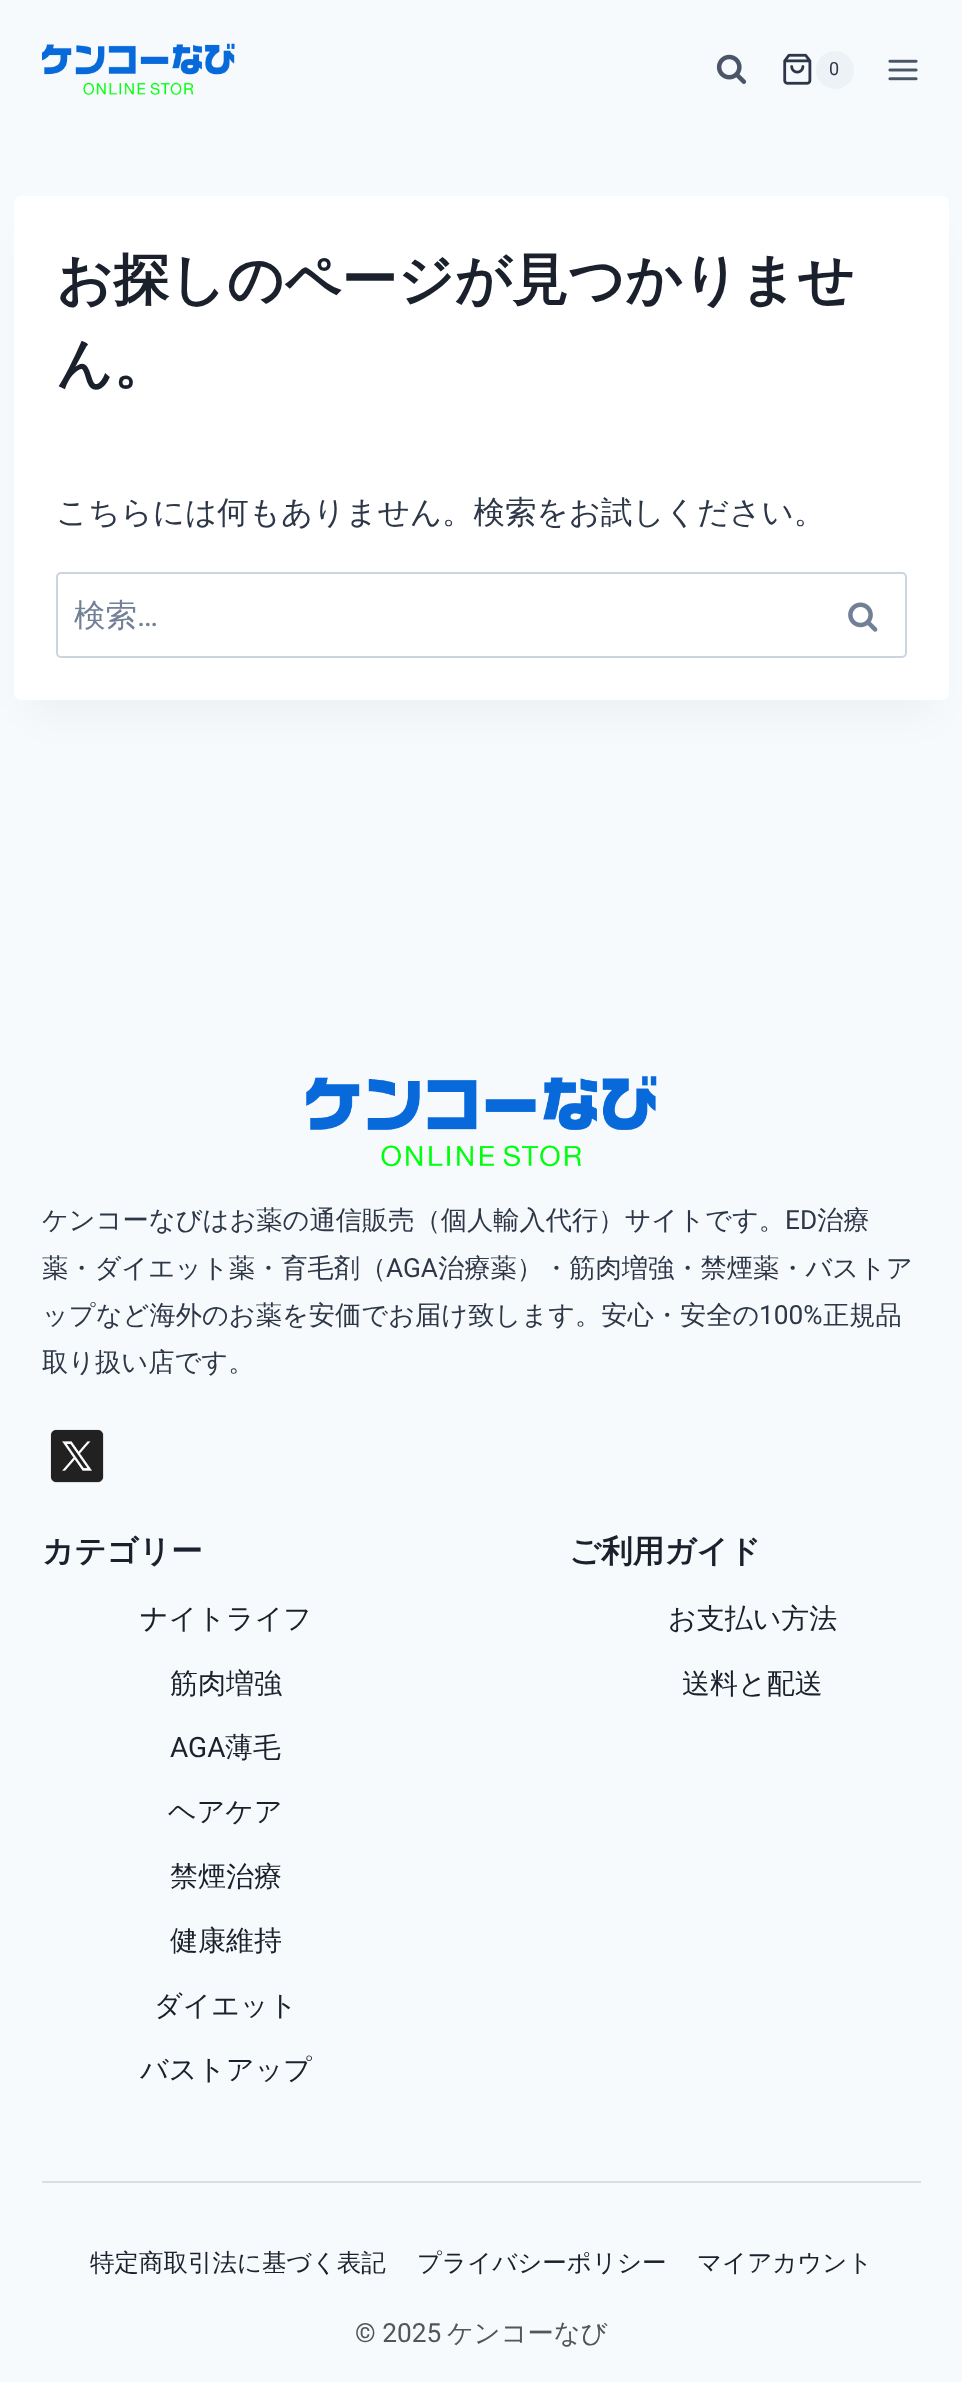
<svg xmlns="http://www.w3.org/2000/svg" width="962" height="2382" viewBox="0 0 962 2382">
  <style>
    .t1 { font: 18px Roboto; fill: #2d3748; }
    .t2 { font: bold 56px WenQuanYi Zen Hei; fill: #1a202c; }
    .t3 { font: 500 31.5px WenQuanYi Zen Hei; fill: #2d3748; }
    .t4 { font: 500 31.5px WenQuanYi Zen Hei; fill: #718096; }
    .t5 { font: 31.5px Roboto; fill: #718096; }
    .t6 { font: 500 26.25px WenQuanYi Zen Hei; fill: #2d3748; }
    .t7 { font: 26.25px Roboto; fill: #2d3748; }
    .t8 { font: bold 31.5px WenQuanYi Zen Hei; fill: #1a202c; }
    .t9 { font: 500 28px WenQuanYi Zen Hei; fill: #1a202c; }
    .t10 { font: 28px Roboto; fill: #1a202c; }
    .t11 { font: 500 24.5px WenQuanYi Zen Hei; fill: #1a202c; }
    .t12 { font: 26.25px Roboto; fill: #555; }
    .t13 { font: 500 26.25px WenQuanYi Zen Hei; fill: #555; }
  </style>
  <rect width="100%" height="100%" fill="#f7fafc"/>
  <image x="42" y="43" width="193" height="52" href="images/1.png"/>
  <image x="716" y="54" width="31" height="30" href="images/2.png"/>
  <image x="783" y="53" width="29" height="32" href="images/3.png"/>
  <circle cx="835" cy="70" r="19" fill="#edf2f7"/>
  <text x="829" y="75" class="t1">0</text>
  <image x="888" y="59" width="30" height="22" href="images/4.png"/>
  <rect x="32" y="240" width="899" height="469" fill="#0000000d" filter="blur(22px)"/>
  <rect x="14" y="196" width="935" height="504" rx="7" fill="#fff"/>
  <text x="56" y="299" class="t2">お探しのページが見つかりませ</text>
  <text x="56" y="383" class="t2">ん。</text>
  <text x="56" y="523" class="t3">こちらには何もありません。検索をお試しください。</text>
  <rect x="57" y="573" width="849" height="84" rx="4" fill="none" stroke="#cbd5e0" stroke-width="2"/>
  <text x="74" y="626" class="t4">検索</text>
  <text x="137" y="626" class="t5">…</text>
  <image x="848" y="602" width="30" height="30" href="images/5.png"/>
  <image x="306" y="1076" width="351" height="91" href="images/6.png"/>
  <text x="42" y="1229" class="t6">ケンコーなびはお薬の通信販売（個人輸入代行）サイトです。</text>
  <text x="785" y="1229" class="t7">ED</text>
  <text x="817" y="1229" class="t6">治療</text>
  <text x="42" y="1277" class="t6">薬・ダイエット薬・育毛剤（</text>
  <text x="386" y="1277" class="t7">AGA</text>
  <text x="438" y="1277" class="t6">治療薬）・筋肉増強・禁煙薬・バストア</text>
  <text x="42" y="1324" class="t6">ップなど海外のお薬を安価でお届け致します。安心・安全の</text>
  <text x="759" y="1324" class="t7">100%</text>
  <text x="823" y="1324" class="t6">正規品</text>
  <text x="42" y="1371" class="t6">取り扱い店です。</text>
  <image x="50" y="1429" width="54" height="54" href="images/7.png"/>
  <text x="42" y="1562" class="t8">カテゴリー</text>
  <text x="140" y="1628" class="t9">ナイトライフ</text>
  <text x="170" y="1693" class="t9">筋肉増強</text>
  <text x="170" y="1757" class="t10">AGA</text>
  <text x="225" y="1757" class="t9">薄毛</text>
  <text x="168" y="1821" class="t9">ヘアケア</text>
  <text x="170" y="1886" class="t9">禁煙治療</text>
  <text x="170" y="1950" class="t9">健康維持</text>
  <text x="154" y="2015" class="t9">ダイエット</text>
  <text x="140" y="2079" class="t9">バストアップ</text>
  <text x="569" y="1562" class="t8">ご利用ガイド</text>
  <text x="668" y="1628" class="t9">お支払い方法</text>
  <text x="682" y="1693" class="t9">送料と配送</text>
  <rect x="42" y="2181" width="879" height="2" fill="#ddd"/>
  <text x="90" y="2271" class="t11">特定商取引法に基づく表記</text>
  <text x="417" y="2271" class="t11">プライバシーポリシー</text>
  <text x="697" y="2271" class="t11">マイアカウント</text>
  <text x="355" y="2342" class="t12">© 2025</text>
  <text x="447" y="2342" class="t13">ケンコーなび</text>
</svg>
